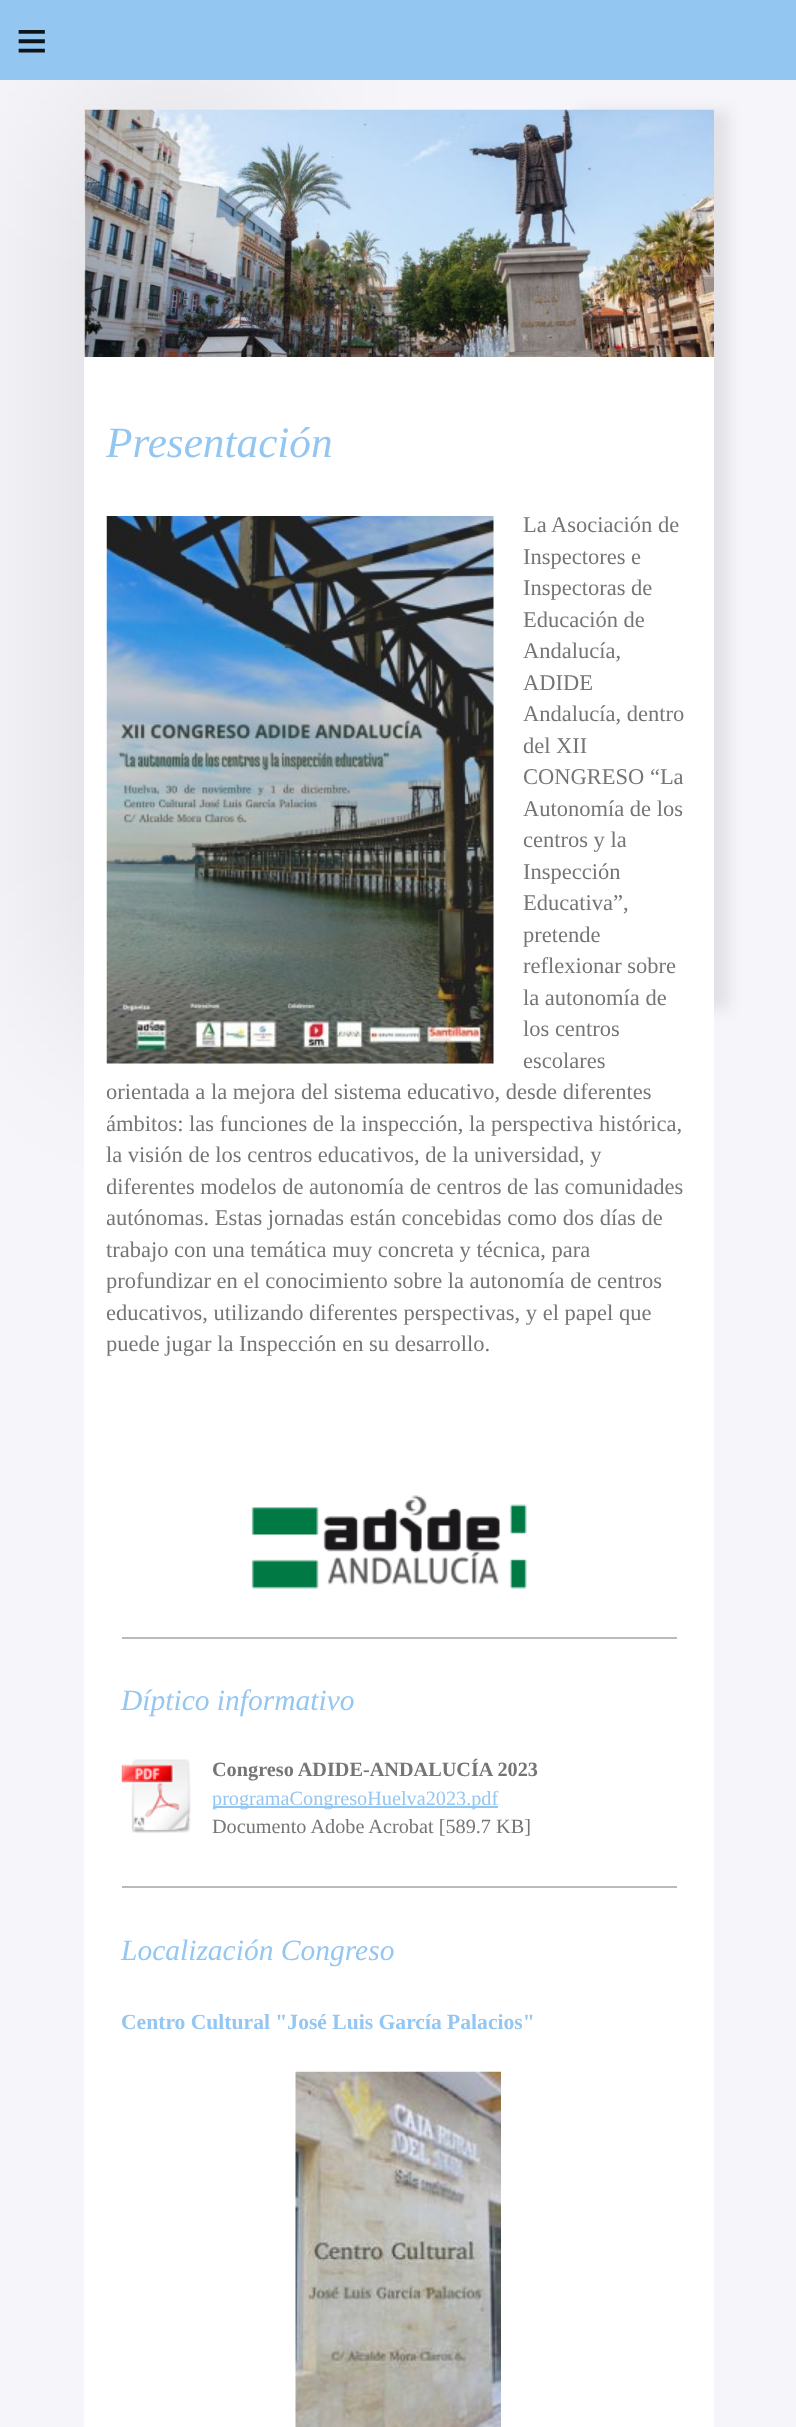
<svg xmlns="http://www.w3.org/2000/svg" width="796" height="2427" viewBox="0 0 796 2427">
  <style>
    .t1 { font: 54px Liberation Sans; letter-spacing: 16px; fill: #0f1418; }
    .t2 { font: italic 43.25px Liberation Serif; fill: #94c6f2; }
    .t3 { font: 22.5px Liberation Serif; fill: #757575; }
    .t4 { font: italic 29.5px Liberation Serif; fill: #94c6f2; }
    .t5 { font: bold 20.25px Liberation Serif; fill: #757575; }
    .t6 { font: 20.25px Liberation Serif; fill: #94c6f2; }
    .t7 { font: 20.25px Liberation Serif; fill: #757575; }
    .t8 { font: bold 21.6px Liberation Serif; fill: #94c6f2; }
  </style>
  <defs>
    <clipPath id="clip1"><rect x="107" y="510" width="585" height="879"/></clipPath>
  </defs>
  <rect width="100%" height="100%" fill="#f5f5fa"/>
  <rect x="99" y="110" width="150" height="900" fill="#00000026" filter="blur(90px)"/>
  <rect x="0" y="0" width="796" height="80" fill="#94c6f2"/>
  <text x="16" y="59" class="t1">≡</text>
  <rect x="579" y="110" width="150" height="900" fill="#00000014" filter="blur(7.5px)"/>
  <image x="84" y="109" width="630" height="248" href="images/1.png"/>
  <rect x="84" y="357" width="630" height="2070" fill="#fff"/>
  <text x="106" y="457" class="t2">Presentación</text>
  <image x="106" y="516" width="388" height="548" href="images/2.png"/>
  <text x="523" y="532" class="t3">La Asociación de</text>
  <text x="523" y="564" class="t3">Inspectores e</text>
  <text x="523" y="595" class="t3">Inspectoras de</text>
  <text x="523" y="627" class="t3">Educación de</text>
  <text x="523" y="658" class="t3">Andalucía,</text>
  <text x="523" y="690" class="t3">ADIDE</text>
  <text x="523" y="721" class="t3">Andalucía, dentro</text>
  <text x="523" y="753" class="t3">del XII</text>
  <text x="523" y="784" class="t3">CONGRESO “La</text>
  <text x="523" y="816" class="t3">Autonomía de los</text>
  <text x="523" y="847" class="t3">centros y la</text>
  <text x="523" y="879" class="t3">Inspección</text>
  <text x="523" y="910" class="t3">Educativa”,</text>
  <text x="523" y="942" class="t3">pretende</text>
  <text x="523" y="973" class="t3">reflexionar sobre</text>
  <text x="523" y="1005" class="t3">la autonomía de</text>
  <text x="523" y="1036" class="t3">los centros</text>
  <text x="523" y="1068" class="t3">escolares</text>
  <g clip-path="url(#clip1)">
    <text x="106" y="1099" class="t3">orientada a la mejora del sistema educativo, desde diferentes</text>
    <text x="106" y="1131" class="t3">ámbitos: las funciones de la inspección, la perspectiva histórica,</text>
  </g>
  <text x="106" y="1162" class="t3">la visión de los centros educativos, de la universidad, y</text>
  <g clip-path="url(#clip1)">
    <text x="106" y="1194" class="t3">diferentes modelos de autonomía de centros de las comunidades</text>
    <text x="106" y="1225" class="t3">autónomas. Estas jornadas están concebidas como dos días de</text>
  </g>
  <text x="106" y="1257" class="t3">trabajo con una temática muy concreta y técnica, para</text>
  <g clip-path="url(#clip1)">
    <text x="106" y="1288" class="t3">profundizar en el conocimiento sobre la autonomía de centros</text>
    <text x="106" y="1320" class="t3">educativos, utilizando diferentes perspectivas, y el papel que</text>
    <text x="106" y="1351" class="t3">puede jugar la Inspección en su desarrollo.</text>
  </g>
  <image x="251" y="1495" width="276" height="94" href="images/3.png"/>
  <rect x="122" y="1637" width="555" height="2" fill="#bababa"/>
  <text x="121" y="1710" class="t4">Díptico informativo</text>
  <image x="121" y="1759" width="70" height="74" href="images/4.png"/>
  <text x="212" y="1776" class="t5">Congreso ADIDE-ANDALUCÍA 2023</text>
  <rect x="213" y="1806" width="285" height="2" fill="#94c6f2"/>
  <text x="212" y="1805" class="t6">programaCongresoHuelva2023.pdf</text>
  <text x="212" y="1833" class="t7">Documento Adobe Acrobat [589.7 KB]</text>
  <rect x="122" y="1886" width="555" height="2" fill="#bababa"/>
  <text x="121" y="1960" class="t4">Localización Congreso</text>
  <text x="121" y="2029" class="t8">Centro Cultural "José Luis García Palacios"</text>
  <image x="295" y="2071" width="206" height="356" href="images/5.png"/>
</svg>
